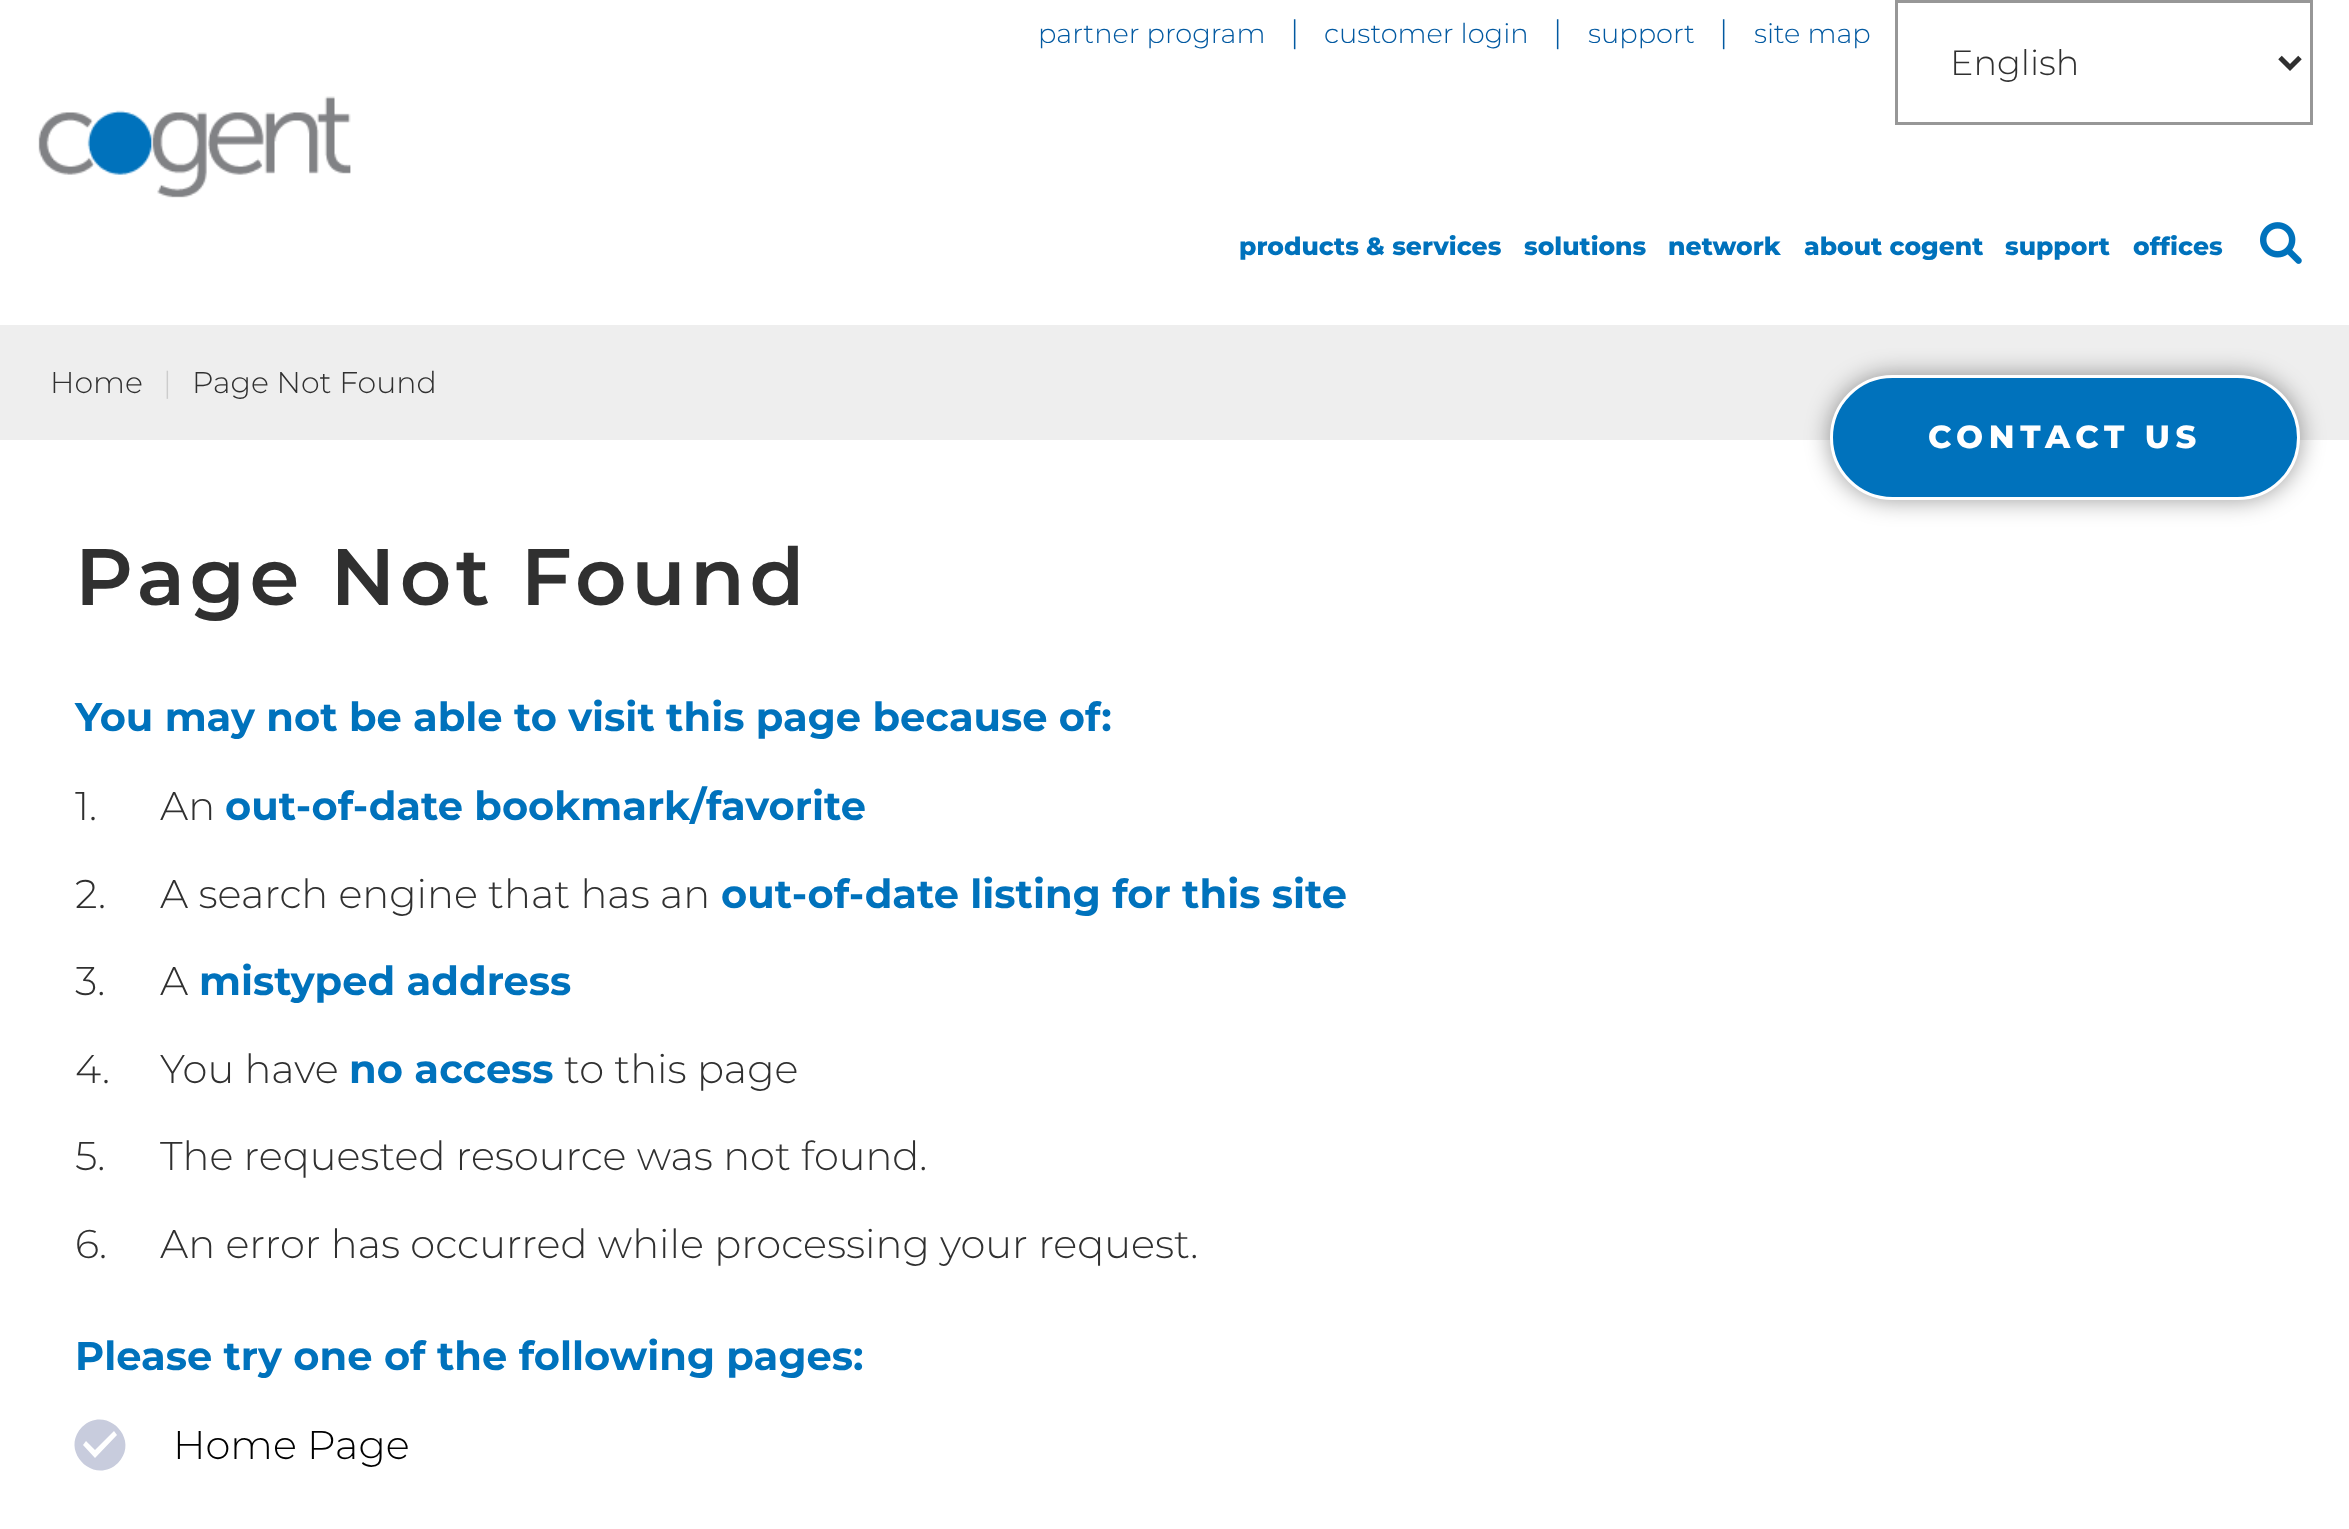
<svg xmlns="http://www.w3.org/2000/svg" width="2349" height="1529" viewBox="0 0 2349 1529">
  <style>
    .t1 { font: 300 27.25px Montserrat; fill: #0259a1; }
    .t2 { font: 300 32px Montserrat; fill: #0259a1; }
    .t3 { font: 300 35px Montserrat; fill: #303030; }
    .t4 { font: 800 25px Montserrat; fill: #0072bc; }
    .t5 { font: 300 30px Montserrat; fill: #303030; }
    .t6 { font: 300 30px Montserrat; fill: #ccc; }
    .t7 { font: 600 80px Montserrat; letter-spacing: 4.5px; fill: #303030; }
    .t8 { font: bold 40px Montserrat; fill: #0072bc; }
    .t9 { font: 300 40px Montserrat; fill: #303030; }
    .t10 { font: 300 40px Montserrat; fill: #000; }
    .t11 { font: 800 32px Montserrat; letter-spacing: 5.6px; fill: #fff; }
  </style>
  <rect width="100%" height="100%" fill="#fff"/>
  <text x="1038" y="43" class="t1">partner program</text>
  <text x="1290" y="43" class="t2">|</text>
  <text x="1324" y="43" class="t1">customer login</text>
  <text x="1553" y="43" class="t2">|</text>
  <text x="1588" y="43" class="t1">support</text>
  <text x="1719" y="43" class="t2">|</text>
  <text x="1754" y="43" class="t1">site map</text>
  <rect x="1896.5" y="1.5" width="415" height="122" fill="none" stroke="#979797" stroke-width="3"/>
  <path d="M2280 57.5L2290 67.5L2300 57.5" fill="none" stroke="#303030" stroke-width="5"/>
  <text x="1950" y="75" class="t3">English</text>
  <image x="38" y="96" width="313" height="102" href="images/1.png"/>
  <text x="1239" y="255" class="t4">products &amp; services</text>
  <text x="1524" y="255" class="t4">solutions</text>
  <text x="1668" y="255" class="t4">network</text>
  <text x="1804" y="255" class="t4">about cogent</text>
  <text x="2005" y="255" class="t4">support</text>
  <text x="2133" y="255" class="t4">offices</text>
  <image x="2260" y="222" width="42" height="42" href="images/2.png"/>
  <rect x="0" y="325" width="2349" height="115" fill="#eee"/>
  <text x="50" y="393" class="t5">Home</text>
  <text x="163" y="393" class="t6">|</text>
  <text x="192" y="393" class="t5">Page Not Found</text>
  <text x="75" y="605" class="t7">Page Not Found</text>
  <text x="75" y="731" class="t8">You may not be able to visit this page because of:</text>
  <text x="75" y="820" class="t9">1.</text>
  <text x="160" y="820" class="t9">An</text>
  <text x="225" y="820" class="t8">out-of-date bookmark/favorite</text>
  <text x="75" y="908" class="t9">2</text>
  <text x="98" y="908" class="t9">.</text>
  <text x="160" y="908" class="t9">A search engine that has an</text>
  <text x="721" y="908" class="t8">out-of-date listing for this site</text>
  <text x="75" y="995" class="t9">3.</text>
  <text x="160" y="995" class="t9">A</text>
  <text x="199" y="995" class="t8">mistyped address</text>
  <text x="75" y="1083" class="t9">4</text>
  <text x="102" y="1083" class="t9">.</text>
  <text x="160" y="1083" class="t9">You have</text>
  <text x="349" y="1083" class="t8">no access</text>
  <text x="564" y="1083" class="t9">to this page</text>
  <text x="75" y="1170" class="t9">5.</text>
  <text x="160" y="1170" class="t9">The requested resource was not found.</text>
  <text x="75" y="1258" class="t9">6</text>
  <text x="99" y="1258" class="t9">.</text>
  <text x="160" y="1258" class="t9">An error has occurred while processing your request.</text>
  <text x="75" y="1370" class="t8">Please try one of the following pages:</text>
  <path d="M95 1458L117 1435L114 1431L95 1450L86 1441L83 1445ZM82 1427C106 1404 141 1439 118 1463C94 1486 59 1451 82 1427Z" fill="#c8ccdd"/>
  <text x="173" y="1459" class="t10">Home Page</text>
  <rect x="1830" y="375" width="470" height="125" rx="62.5" fill="#00000066" filter="blur(12.5px)"/>
  <rect x="1831.5" y="376.5" width="467" height="122" rx="61" fill="#0072bc" stroke="#fff" stroke-width="3"/>
  <text x="1928" y="448" class="t11">CONTACT US</text>
</svg>
